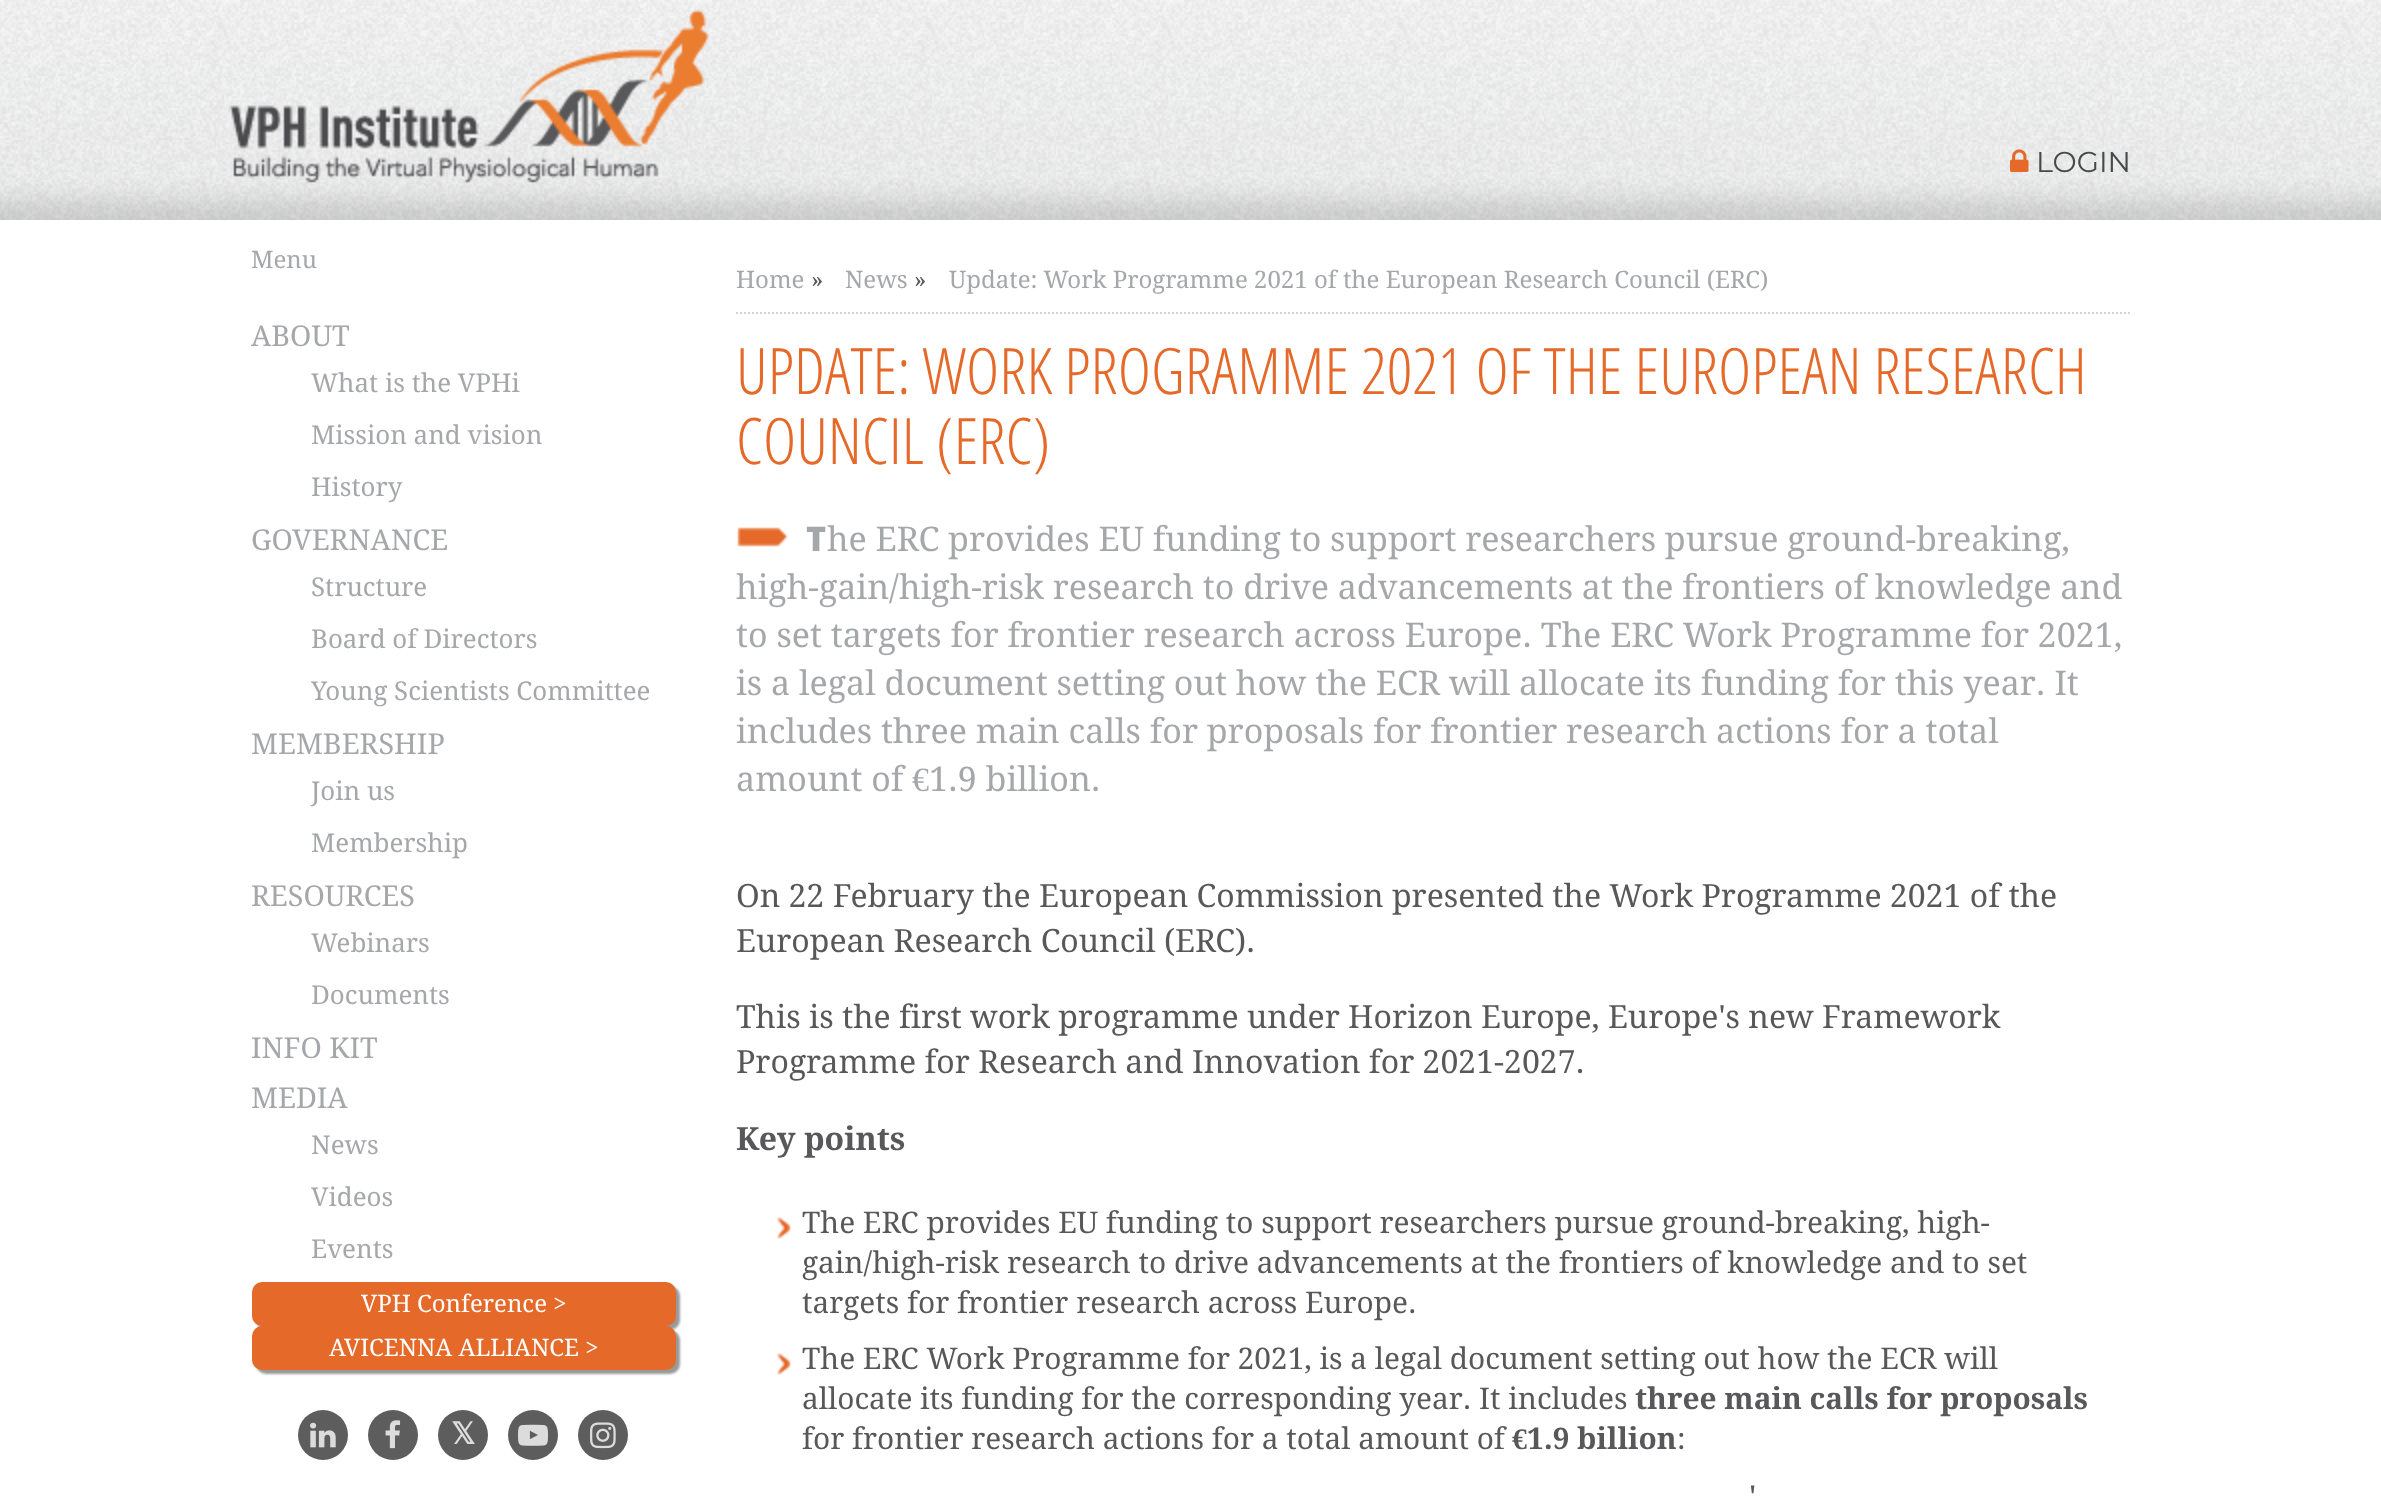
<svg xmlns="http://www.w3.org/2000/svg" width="2381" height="1497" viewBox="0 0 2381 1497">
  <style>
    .t1 { font: 28.75px Montserrat; fill: #47484a; }
    .t2 { font: 24px Droid Serif; fill: #a5a7aa; }
    .t3 { font: 28.75px Droid Serif; fill: #a5a7aa; }
    .t4 { font: 25.9px Droid Serif; fill: #a5a7aa; }
    .t5 { font: 24px Droid Serif; fill: #fff; }
    .t6 { font: bold 30px DejaVu Sans; fill: #dcdcdc; }
    .t7 { font: 24px Droid Serif; fill: #58585a; }
    .t8 { font: 300 64px Open Sans Condensed; fill: #e56929; }
    .t9 { font: 900 34px Noto Sans; fill: #a5a7aa; }
    .t10 { font: 34px Droid Serif; fill: #a5a7aa; }
    .t11 { font: 34px Liberation Serif; fill: #a5a7aa; }
    .t12 { font: 32px Droid Serif; fill: #58585a; }
    .t13 { font: bold 32px Droid Serif; fill: #58585a; }
    .t14 { font: 29.8px Droid Serif; fill: #58585a; }
    .t15 { font: bold 29.8px Droid Serif; fill: #58585a; }
    .t16 { font: bold 29.8px Liberation Serif; fill: #58585a; }
    .t17 { font: 33px Droid Serif; fill: #58585a; }
  </style>
  <rect width="100%" height="100%" fill="#fff"/>
  <image x="0" y="0" width="2381" height="220" href="images/1.png"/>
  <image x="229" y="10" width="480" height="173" href="images/2.png"/>
  <image x="2010" y="149" width="19" height="23" href="images/3.png"/>
  <text x="2036" y="172" class="t1">LOGIN</text>
  <text x="251" y="268" class="t2">Menu</text>
  <text x="251" y="346" class="t3">ABOUT</text>
  <text x="311" y="392" class="t4">What is the VPHi</text>
  <text x="311" y="444" class="t4">Mission and vision</text>
  <text x="311" y="496" class="t4">History</text>
  <text x="251" y="550" class="t3">GOVERNANCE</text>
  <text x="311" y="596" class="t4">Structure</text>
  <text x="311" y="648" class="t4">Board of Directors</text>
  <text x="311" y="700" class="t4">Young Scientists Committee</text>
  <text x="251" y="754" class="t3">MEMBERSHIP</text>
  <text x="311" y="800" class="t4">Join us</text>
  <text x="311" y="852" class="t4">Membership</text>
  <text x="251" y="906" class="t3">RESOURCES</text>
  <text x="311" y="952" class="t4">Webinars</text>
  <text x="311" y="1004" class="t4">Documents</text>
  <text x="251" y="1058" class="t3">INFO KIT</text>
  <text x="251" y="1108" class="t3">MEDIA</text>
  <text x="311" y="1154" class="t4">News</text>
  <text x="311" y="1206" class="t4">Videos</text>
  <text x="311" y="1258" class="t4">Events</text>
  <rect x="256" y="1286" width="424" height="44" rx="10" fill="#00000066" filter="blur(1px)"/>
  <rect x="252" y="1282" width="424" height="44" rx="10" fill="#e56929"/>
  <text x="361" y="1312" class="t5">VPH Conference &gt;</text>
  <rect x="256" y="1330" width="424" height="44" rx="10" fill="#00000066" filter="blur(1px)"/>
  <rect x="252" y="1326" width="424" height="44" rx="10" fill="#e56929"/>
  <text x="329" y="1356" class="t5">AVICENNA ALLIANCE &gt;</text>
  <circle cx="323" cy="1435" r="25" fill="#5d5d5d"/>
  <image x="310" y="1422" width="26" height="26" href="images/4.png"/>
  <circle cx="393" cy="1435" r="25" fill="#5d5d5d"/>
  <image x="385" y="1420" width="16" height="29" href="images/5.png"/>
  <circle cx="463" cy="1435" r="25" fill="#5d5d5d"/>
  <text x="451" y="1444" class="t6">𝕏</text>
  <circle cx="533" cy="1435" r="25" fill="#5d5d5d"/>
  <image x="518" y="1424" width="30" height="22" href="images/6.png"/>
  <circle cx="603" cy="1435" r="25" fill="#5d5d5d"/>
  <image x="590" y="1422" width="26" height="27" href="images/7.png"/>
  <path d="M736 313H2132" fill="none" stroke="#d3d3d4" stroke-width="2" stroke-dasharray="2 2"/>
  <text x="736" y="288" class="t2">Home</text>
  <text x="811" y="288" class="t7">»</text>
  <text x="845" y="288" class="t2">News</text>
  <text x="914" y="288" class="t7">»</text>
  <text x="949" y="288" class="t2">Update: Work Programme 2021 of the European Research Council (ERC)</text>
  <text x="736" y="394" class="t8">UPDATE: WORK PROGRAMME 2021 OF THE EUROPEAN RESEARCH</text>
  <text x="736" y="464" class="t8">COUNCIL (ERC)</text>
  <image x="737" y="527" width="52" height="20" href="images/8.png"/>
  <text x="806" y="551" class="t9">T</text>
  <text x="827" y="551" class="t10">he ERC provides EU funding to support researchers pursue ground-breaking,</text>
  <text x="736" y="599" class="t10">high-gain/high-risk research to drive advancements at the frontiers of knowledge and</text>
  <text x="736" y="647" class="t10">to set targets for frontier research across Europe. The ERC Work Programme for 2021,</text>
  <text x="736" y="695" class="t10">is a legal document setting out how the ECR will allocate its funding for this year. It</text>
  <text x="736" y="743" class="t10">includes three main calls for proposals for frontier research actions for a total</text>
  <text x="736" y="791" class="t10">amount of</text>
  <text x="912" y="791" class="t11">€</text>
  <text x="929" y="791" class="t10">1.9 billion.</text>
  <text x="736" y="907" class="t12">On 22 February the European Commission presented the Work Programme 2021 of the</text>
  <text x="736" y="952" class="t12">European Research Council (ERC).</text>
  <text x="736" y="1028" class="t12">This is the first work programme under Horizon Europe, Europe's new Framework</text>
  <text x="736" y="1073" class="t12">Programme for Research and Innovation for 2021-2027.</text>
  <text x="736" y="1150" class="t13">Key points</text>
  <image x="777" y="1217" width="14" height="22" href="images/9.png"/>
  <text x="802" y="1233" class="t14">The ERC provides EU funding to support researchers pursue ground-breaking, high-</text>
  <text x="802" y="1273" class="t14">gain/high-risk research to drive advancements at the frontiers of knowledge and to set</text>
  <text x="802" y="1313" class="t14">targets for frontier research across Europe.</text>
  <image x="777" y="1353" width="14" height="22" href="images/9.png"/>
  <text x="802" y="1369" class="t14">The ERC Work Programme for 2021, is a legal document setting out how the ECR will</text>
  <text x="802" y="1409" class="t14">allocate its funding for the corresponding year. It includes</text>
  <text x="1635" y="1409" class="t15">three main calls for proposals</text>
  <text x="802" y="1449" class="t14">for frontier research actions for a total amount of</text>
  <text x="1512" y="1449" class="t16">€</text>
  <text x="1527" y="1449" class="t15">1.9 billion</text>
  <text x="1677" y="1449" class="t14">:</text>
  <text x="1749" y="1509" class="t17">'</text>
</svg>
